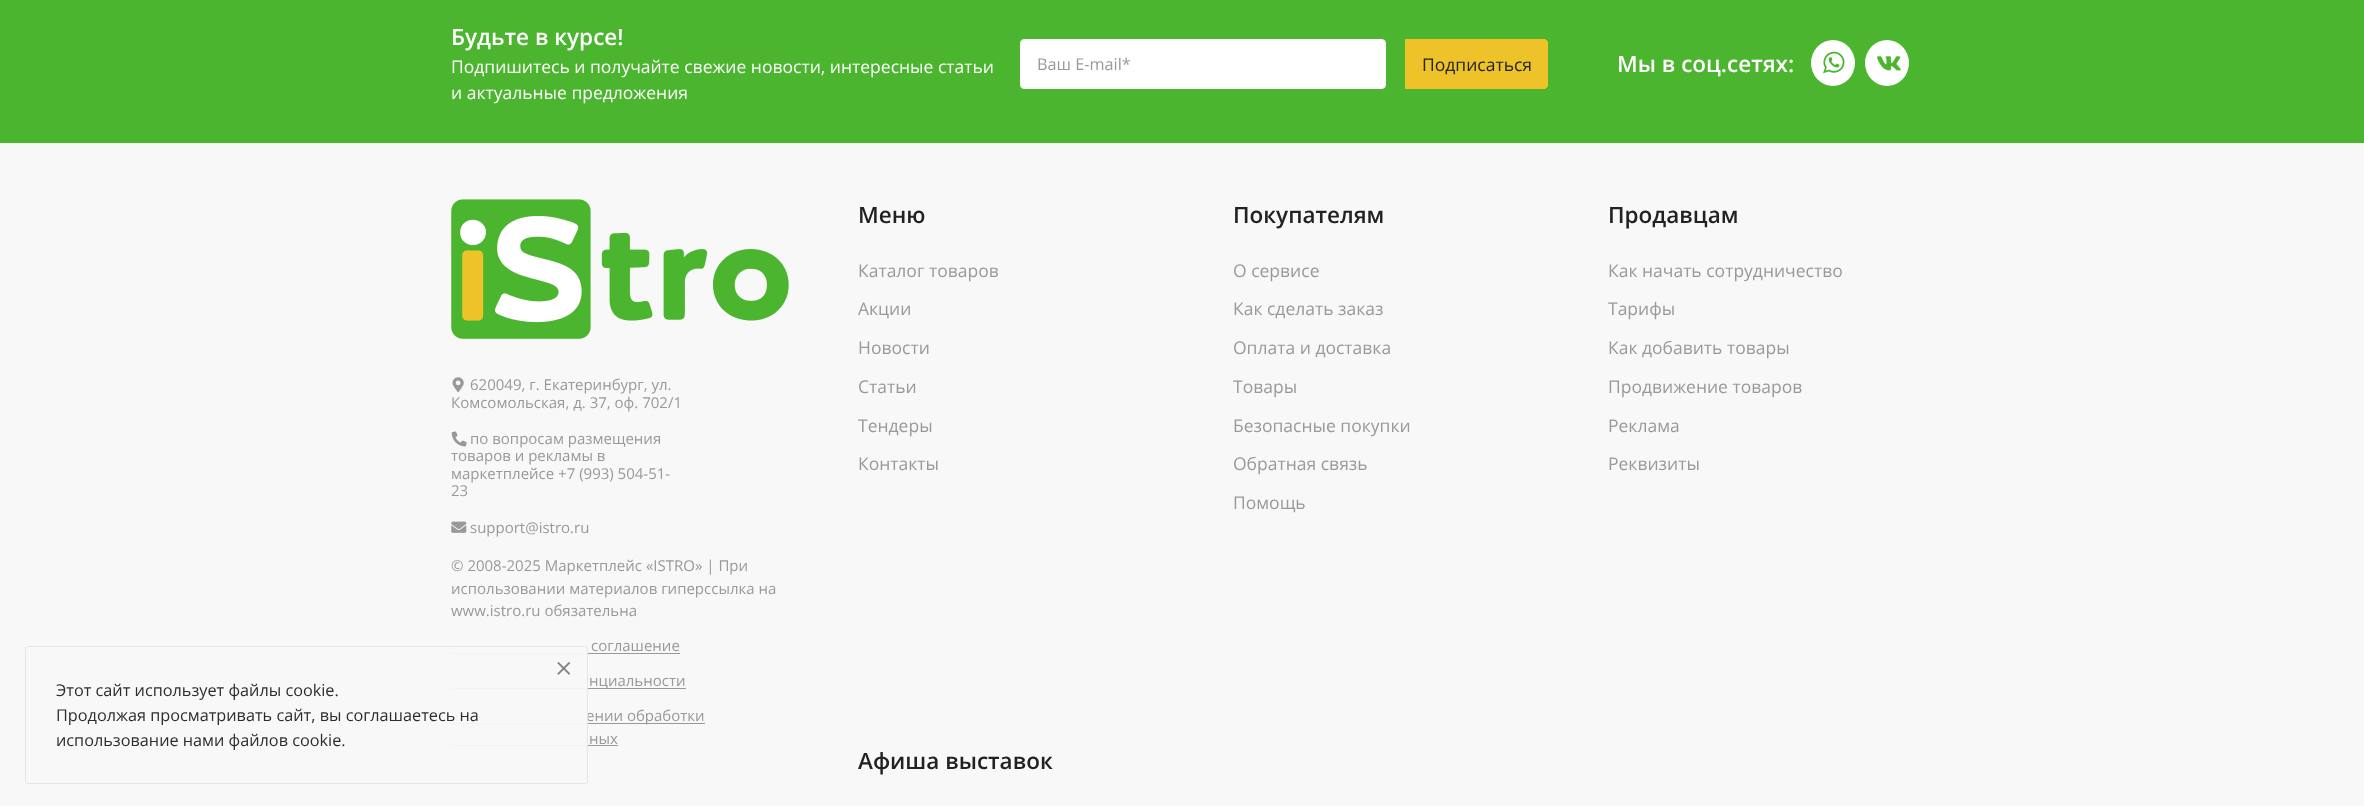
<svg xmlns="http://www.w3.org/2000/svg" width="2364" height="806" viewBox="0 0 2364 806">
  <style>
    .t1 { font: 15px Open Sans; fill: #999; }
    .t2 { font: 16.25px Open Sans; fill: #2d2d2d; }
    .t3 { font: 600 22.5px Open Sans; fill: #fff; }
    .t4 { font: 17.5px Open Sans; fill: #fff; }
    .t5 { font: 16.25px Open Sans; fill: #999; }
    .t6 { font: 17.5px Open Sans; fill: #222; }
    .t7 { font: 600 22.5px Open Sans; fill: #222; }
    .t8 { font: 17.5px Open Sans; fill: #999; }
  </style>
  <rect width="100%" height="100%" fill="#f8f8f8"/>
  <rect x="451" y="653" width="229" height="1" fill="#999"/>
  <rect x="451" y="688" width="235" height="1" fill="#999"/>
  <rect x="451" y="723" width="254" height="1" fill="#999"/>
  <text x="586" y="721" class="t1">ении обработки</text>
  <rect x="451" y="745" width="167" height="1" fill="#999"/>
  <rect x="25" y="646" width="563" height="138" rx="2.5" fill="#f8f8f8f2"/>
  <rect x="25.5" y="646.5" width="562" height="137" rx="2" fill="none" stroke="#e5e5e8f2"/>
  <image x="557" y="662" width="14" height="13" href="images/1.png"/>
  <text x="56" y="696" class="t2">Этот сайт использует файлы cookie.</text>
  <text x="56" y="721" class="t2">Продолжая просматривать сайт, вы соглашаетесь на</text>
  <text x="56" y="746" class="t2">использование нами файлов cookie.</text>
  <rect x="0" y="0" width="2364" height="143" fill="#4cb52f"/>
  <text x="451" y="45" class="t3">Будьте в курсе!</text>
  <text x="451" y="73" class="t4">Подпишитесь и получайте свежие новости, интересные статьи</text>
  <text x="451" y="99" class="t4">и актуальные предложения</text>
  <rect x="1021" y="40" width="364" height="48" rx="2.5" fill="#fff"/>
  <rect x="1020.5" y="39.5" width="365" height="49" rx="3.5" fill="none" stroke="#fff"/>
  <text x="1037" y="70" class="t5">Ваш E-mail*</text>
  <path d="M1405.5 39.5H1544C1546 39.5 1547.5 41 1547.5 43V85C1547.5 87 1546 88.5 1544 88.5H1405.5Z" fill="#eec329" stroke="#eec329"/>
  <text x="1422" y="71" class="t6">Подписаться</text>
  <text x="1617" y="72" class="t3">Мы в соц.сетях:</text>
  <ellipse cx="1833" cy="63" rx="22" ry="23" fill="#fff"/>
  <image x="1823" y="51" width="22" height="23" href="images/2.png"/>
  <ellipse cx="1887" cy="63" rx="22" ry="23" fill="#fff"/>
  <image x="1877" y="56" width="24" height="15" href="images/3.png"/>
  <text x="858" y="223" class="t7">Меню</text>
  <text x="858" y="277" class="t8">Каталог товаров</text>
  <text x="858" y="315" class="t8">Акции</text>
  <text x="858" y="354" class="t8">Новости</text>
  <text x="858" y="393" class="t8">Статьи</text>
  <text x="858" y="432" class="t8">Тендеры</text>
  <text x="858" y="470" class="t8">Контакты</text>
  <text x="1233" y="223" class="t7">Покупателям</text>
  <text x="1233" y="277" class="t8">О сервисе</text>
  <text x="1233" y="315" class="t8">Как сделать заказ</text>
  <text x="1233" y="354" class="t8">Оплата и доставка</text>
  <text x="1233" y="393" class="t8">Товары</text>
  <text x="1233" y="432" class="t8">Безопасные покупки</text>
  <text x="1233" y="470" class="t8">Обратная связь</text>
  <text x="1233" y="509" class="t8">Помощь</text>
  <text x="1608" y="223" class="t7">Продавцам</text>
  <text x="1608" y="277" class="t8">Как начать сотрудничество</text>
  <text x="1608" y="315" class="t8">Тарифы</text>
  <text x="1608" y="354" class="t8">Как добавить товары</text>
  <text x="1608" y="393" class="t8">Продвижение товаров</text>
  <text x="1608" y="432" class="t8">Реклама</text>
  <text x="1608" y="470" class="t8">Реквизиты</text>
  <image x="451" y="199" width="338" height="140" href="images/4.png"/>
  <image x="452" y="377" width="12" height="16" href="images/5.png"/>
  <text x="470" y="390" class="t1">620049, г. Екатеринбург, ул.</text>
  <text x="451" y="408" class="t1">Комсомольская, д. 37, оф. 702/1</text>
  <image x="451" y="431" width="16" height="16" href="images/6.png"/>
  <text x="470" y="444" class="t1">по вопросам размещения</text>
  <text x="451" y="461" class="t1">товаров и рекламы в</text>
  <text x="451" y="479" class="t1">маркетплейсе +7 (993) 504-51-</text>
  <text x="451" y="496" class="t1">23</text>
  <image x="451" y="521" width="16" height="12" href="images/7.png"/>
  <text x="470" y="533" class="t1">support@istro.ru</text>
  <text x="451" y="571" class="t1">© 2008-2025 Маркетплейс «ISTRO» | При</text>
  <text x="451" y="594" class="t1">использовании материалов гиперссылка на</text>
  <text x="451" y="616" class="t1">www.istro.ru обязательна</text>
  <text x="591" y="651" class="t1">соглашение</text>
  <text x="589" y="686" class="t1">нциальности</text>
  <text x="589" y="744" class="t1">ных</text>
  <text x="858" y="769" class="t7">Афиша выставок</text>
</svg>
